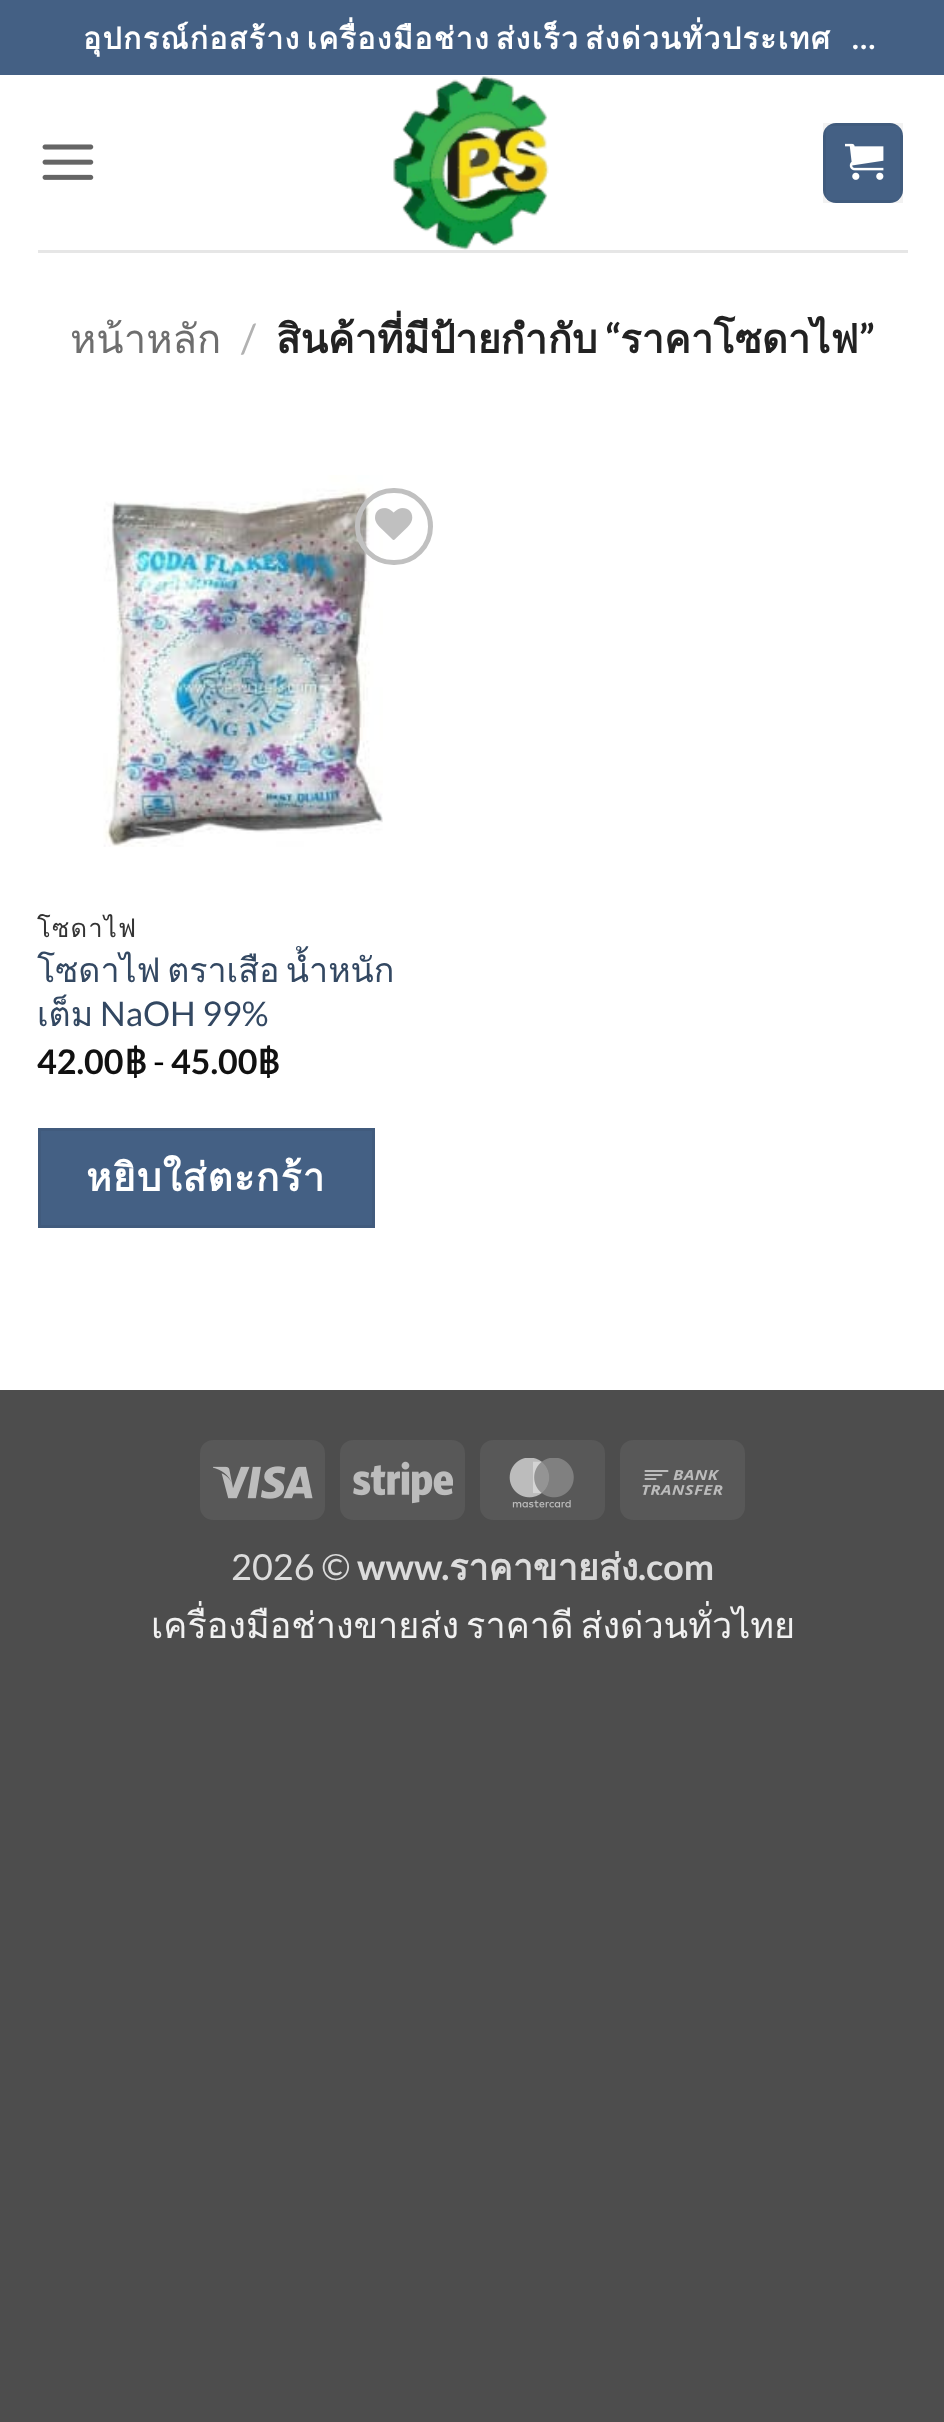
<svg xmlns="http://www.w3.org/2000/svg" width="944" height="2422" viewBox="0 0 944 2422">
  <style>
    .t1 { font: bold 30px Loma; letter-spacing: 1.5px; fill: #fff; }
    .t2 { font: bold 30px Lato; letter-spacing: 1.5px; fill: #fff; }
    .t3 { font: 40px Loma; fill: #6e6e6e; }
    .t4 { font: 40px Lato; fill: #b2b2b2; }
    .t5 { font: bold 40px Loma; fill: #222; }
    .t6 { font: bold 40px Lato; fill: #222; }
    .t7 { font: 25.5px Loma; letter-spacing: 1.25px; fill: #333; }
    .t8 { font: 34px Loma; fill: #334862; }
    .t9 { font: 34px Lato; fill: #334862; }
    .t10 { font: bold 34px Lato; fill: #111; }
    .t11 { font: bold 34px 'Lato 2'; fill: #111; }
    .t12 { font: 34px Lato; fill: #000; }
    .t13 { font: bold 38.75px Loma; letter-spacing: 1.2px; fill: #fff; }
    .t14 { font: 36px Lato; fill: #dbdbdb; }
    .t15 { font: bold 36px Lato; fill: #dbdbdb; }
    .t16 { font: bold 36px Loma; fill: #dbdbdb; }
    .t17 { font: 36px Loma; fill: #f1f1f1; }
  </style>
  <rect width="100%" height="100%" fill="#4d4d4d"/>
  <rect x="0" y="75" width="944" height="1315" fill="#fff"/>
  <rect x="0" y="0" width="944" height="75" fill="#446084"/>
  <text x="83" y="49" word-spacing="-6" class="t1">อุปกรณ์ก่อสร้าง เครื่องมือช่าง ส่งเร็ว ส่งด่วนทั่วประเทศ</text>
  <text x="852" y="49" class="t2">...</text>
  <image x="42" y="144" width="52" height="36" href="images/1.png"/>
  <image x="393" y="76" width="156" height="174" href="images/2.png"/>
  <rect x="823" y="123" width="80" height="80" rx="13" fill="#446084"/>
  <rect x="824.5" y="124.5" width="77" height="77" fill="none" stroke="#0000000d" stroke-width="3"/>
  <image x="845" y="143" width="39" height="37" href="images/3.png"/>
  <rect x="38" y="250" width="870" height="3" fill="#e6e6e6"/>
  <text x="70" y="353" class="t3">หน้าหลัก</text>
  <text x="241" y="353" class="t4">/</text>
  <text x="276" y="353" class="t5">สินค้าที่มีป้ายกำกับ</text>
  <text x="605" y="353" class="t6">“</text>
  <text x="620" y="353" class="t5">ราคาโซดาไฟ</text>
  <text x="859" y="353" class="t6">”</text>
  <image x="103" y="475" width="280" height="372" href="images/4.png"/>
  <rect x="357.5" y="490.5" width="73" height="72" rx="36" fill="none" stroke="#c0c0c0" stroke-width="5"/>
  <image x="375" y="508" width="38" height="32" href="images/5.png"/>
  <text x="37" y="937" class="t7">โซดาไฟ</text>
  <text x="37" y="982" word-spacing="-5" class="t8">โซดาไฟ ตราเสือ น้ำหนัก</text>
  <text x="37" y="1026" class="t8">เต็ม</text>
  <text x="100" y="1026" class="t9">NaOH 99%</text>
  <text x="37" y="1074" class="t10">42.00</text>
  <text x="124" y="1074" class="t11">฿</text>
  <text x="153" y="1074" class="t12">-</text>
  <text x="171" y="1074" class="t10">45.00</text>
  <text x="257" y="1074" class="t11">฿</text>
  <rect x="39.5" y="1129.5" width="334" height="97" fill="#446084" stroke="#415b7d" stroke-width="3"/>
  <text x="86" y="1191" class="t13">หยิบใส่ตะกร้า</text>
  <rect x="200" y="1440" width="125" height="80" rx="13" fill="#585858"/>
  <image x="213" y="1466" width="100" height="33" href="images/6.png"/>
  <rect x="340" y="1440" width="125" height="80" rx="13" fill="#585858"/>
  <image x="353" y="1461" width="100" height="43" href="images/7.png"/>
  <rect x="480" y="1440" width="125" height="80" rx="13" fill="#585858"/>
  <image x="509" y="1458" width="65" height="50" href="images/8.png"/>
  <rect x="620" y="1440" width="125" height="80" rx="13" fill="#585858"/>
  <image x="642" y="1470" width="81" height="25" href="images/9.png"/>
  <text x="231" y="1580" class="t14">2026 ©</text>
  <text x="357" y="1580" class="t15">www.</text>
  <text x="449" y="1580" class="t16">ราคาขายส่ง</text>
  <text x="638" y="1580" class="t15">.com</text>
  <text x="151" y="1638" word-spacing="-5" class="t17">เครื่องมือช่างขายส่ง ราคาดี ส่งด่วนทั่วไทย</text>
</svg>
